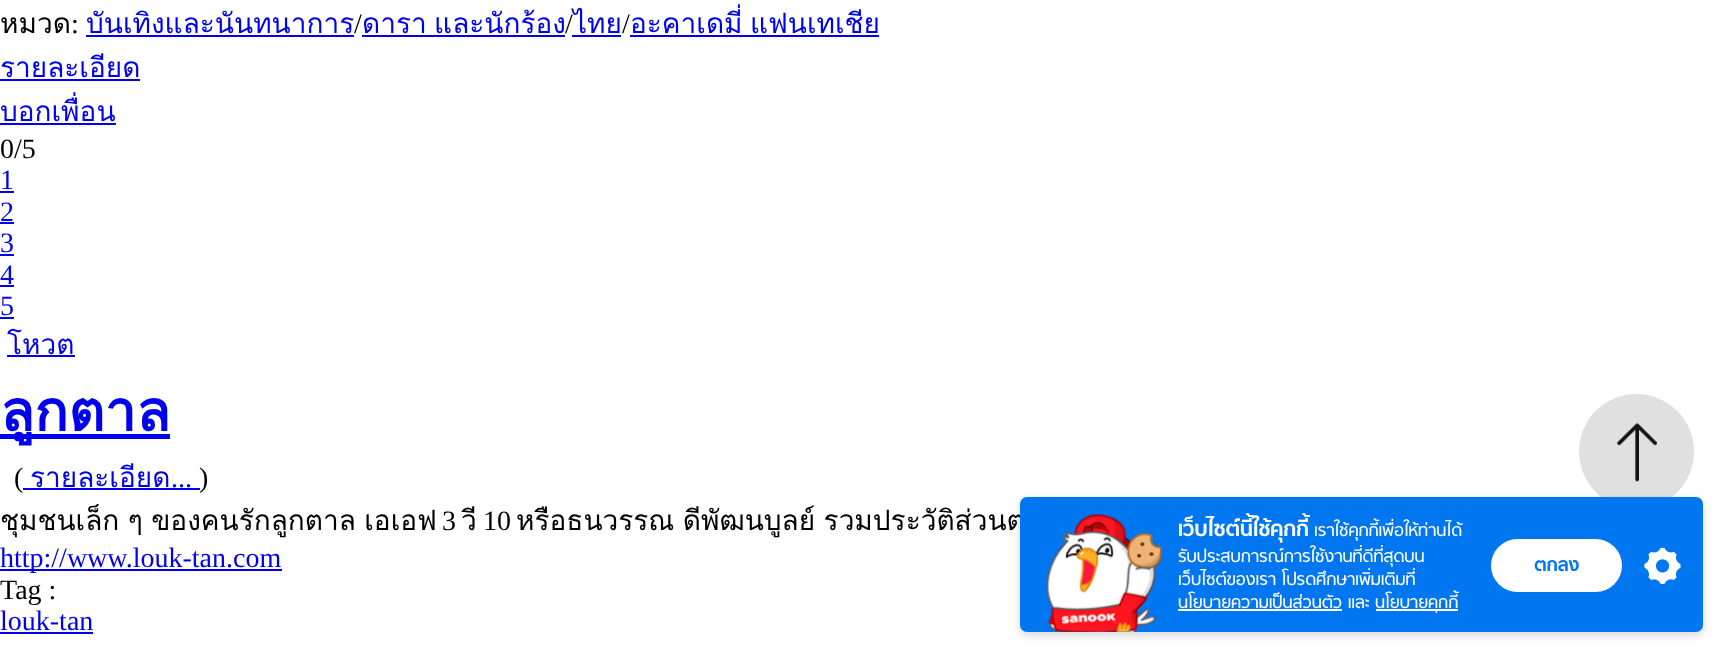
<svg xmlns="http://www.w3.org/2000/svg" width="1720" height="648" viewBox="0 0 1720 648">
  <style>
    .t1 { font: 28px Loma; fill: #000; }
    .t2 { font: 28px Liberation Serif; fill: #000; }
    .t3 { font: 28px Loma; fill: #00e; }
    .t4 { font: 28px Liberation Serif; fill: #00e; }
    .t5 { font: bold 56px Loma; fill: #00e; }
    .t6 { font: bold 24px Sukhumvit; fill: #fff; }
    .t7 { font: 19.25px Sukhumvit; fill: #fff; }
    .t8 { font: bold 21px Sukhumvit; fill: #0076f1; }
  </style>
  <rect width="100%" height="100%" fill="#fff"/>
  <text x="0" y="33" class="t1">หมวด</text>
  <text x="71" y="33" class="t2">:</text>
  <text x="86" y="33" class="t3">บันเทิงและนันทนาการ</text>
  <rect x="86" y="35" width="268" height="2" fill="#00e"/>
  <text x="354" y="33" class="t2">/</text>
  <text x="362" y="33" word-spacing="-2" class="t3">ดารา และนักร้อง</text>
  <rect x="362" y="35" width="203" height="2" fill="#00e"/>
  <text x="565" y="33" class="t2">/</text>
  <text x="573" y="33" class="t3">ไทย</text>
  <rect x="572" y="35" width="49" height="2" fill="#00e"/>
  <text x="622" y="33" class="t2">/</text>
  <text x="630" y="33" word-spacing="-2" class="t3">อะคาเดมี่ แฟนเทเชีย</text>
  <rect x="630" y="35" width="249" height="2" fill="#00e"/>
  <text x="0" y="77" class="t3">รายละเอียด</text>
  <rect x="0" y="79" width="140" height="2" fill="#00e"/>
  <text x="0" y="121" class="t3">บอกเพื่อน</text>
  <rect x="0" y="123" width="116" height="2" fill="#00e"/>
  <text x="0" y="158" class="t2">0/5</text>
  <text x="0" y="189" class="t4">1</text>
  <rect x="0" y="191" width="14" height="2" fill="#00e"/>
  <text x="0" y="221" class="t4">2</text>
  <rect x="0" y="222" width="14" height="2" fill="#00e"/>
  <text x="0" y="252" class="t4">3</text>
  <rect x="0" y="254" width="14" height="2" fill="#00e"/>
  <text x="0" y="284" class="t4">4</text>
  <rect x="0" y="285" width="14" height="2" fill="#00e"/>
  <text x="0" y="315" class="t4">5</text>
  <rect x="0" y="317" width="14" height="2" fill="#00e"/>
  <text x="7" y="354" class="t3">โหวต</text>
  <rect x="7" y="355" width="68" height="2" fill="#00e"/>
  <text x="0" y="431" class="t5">ลูกตาล</text>
  <rect x="0" y="434" width="170" height="5" fill="#00e"/>
  <text x="14" y="487" class="t2">(</text>
  <text x="30" y="487" class="t3">รายละเอียด</text>
  <text x="171" y="487" class="t4">...</text>
  <rect x="23" y="488" width="177" height="2" fill="#00e"/>
  <text x="199" y="487" class="t2">)</text>
  <text x="0" y="530" word-spacing="-1" class="t1">ชุมชนเล็ก ๆ ของคนรักลูกตาล เอเอฟ</text>
  <text x="442" y="530" class="t2">3</text>
  <text x="461" y="530" class="t1">วี</text>
  <text x="483" y="530" class="t2">10</text>
  <text x="516" y="530" word-spacing="-1" class="t1">หรือธนวรรณ ดีพัฒนบูลย์ รวมประวัติส่วนต</text>
  <rect x="0" y="569" width="282" height="2" fill="#00e"/>
  <text x="0" y="567" class="t4">http://www.louk-tan.com</text>
  <text x="0" y="599" class="t2">Tag :</text>
  <text x="0" y="630" class="t4">louk-tan</text>
  <rect x="0" y="632" width="93" height="2" fill="#00e"/>
  <circle cx="1636.5" cy="451.5" r="57.5" fill="#e0e0e0"/>
  <image x="1617" y="423" width="40" height="59" href="images/1.png"/>
  <rect x="1020" y="501" width="683" height="134" rx="7" fill="#0000002b" filter="blur(5px)"/>
  <rect x="1020" y="497" width="683" height="135" rx="7" fill="#0076f1"/>
  <image x="1045" y="514" width="117" height="118" href="images/2.png"/>
  <text x="1178" y="536" class="t6">เว็บไซต์นี้ใช้คุกกี้</text>
  <text x="1314" y="536" class="t7">เราใช้คุกกี้เพื่อให้ท่านได้</text>
  <text x="1178" y="562" class="t7">รับประสบการณ์การใช้งานที่ดีที่สุดบน</text>
  <text x="1178" y="585" class="t7">เว็บไซต์ของเรา โปรดศึกษาเพิ่มเติมที่</text>
  <text x="1178" y="608" class="t7">นโยบายความเป็นส่วนตัว และ</text>
  <rect x="1178" y="609" width="164" height="2" fill="#fff"/>
  <rect x="1376" y="609" width="82" height="2" fill="#fff"/>
  <text x="1375" y="608" class="t7">นโยบายคุกกี้</text>
  <rect x="1491" y="539" width="131" height="53" rx="26.5" fill="#fff"/>
  <text x="1534" y="571" class="t8">ตกลง</text>
  <image x="1644" y="547" width="37" height="37" href="images/3.png"/>
</svg>
